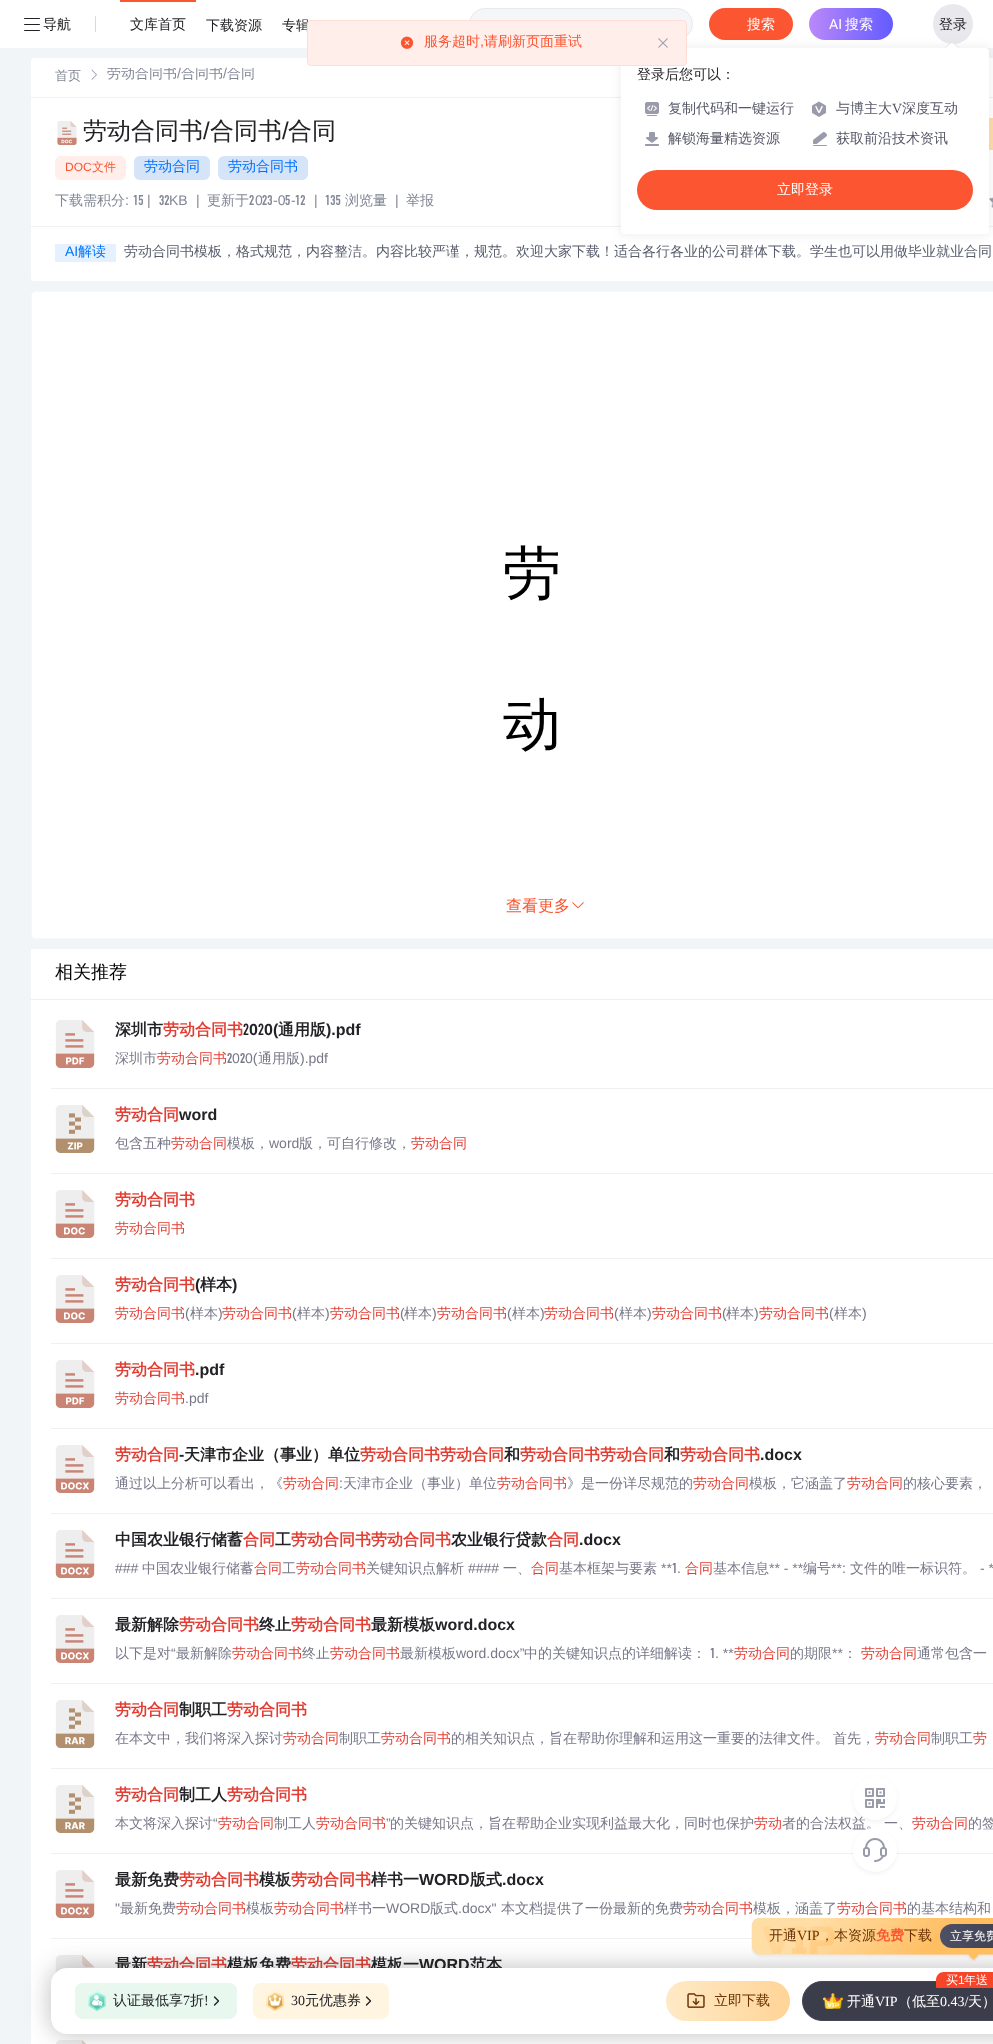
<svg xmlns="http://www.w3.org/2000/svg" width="993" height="2044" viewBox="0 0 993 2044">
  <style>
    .t1 { font: 500 14px WenQuanYi Zen Hei; fill: #1a1a1a; }
    .t2 { font: 500 14px WenQuanYi Zen Hei; fill: #222226; }
    .t3 { font: 500 14px WenQuanYi Zen Hei; fill: #555666; }
    .t4 { font: 14px Liberation Serif; fill: #555666; }
    .t5 { font: 500 14px WenQuanYi Zen Hei; fill: #fff; }
    .t6 { font: 14px Roboto; fill: #fff; }
    .t7 { font: 500 14px WenQuanYi Zen Hei; fill: #fc5531; }
    .t8 { font: 14px Liberation Sans; fill: #fc5531; }
    .t9 { font: 500 13px WenQuanYi Zen Hei; fill: #828795; }
    .t10 { font: 500 14px WenQuanYi Zen Hei; fill: #828795; }
    .t11 { font: 14px Liberation Sans; fill: #828795; }
    .t12 { font: 500 24px WenQuanYi Zen Hei; fill: #222226; }
    .t13 { font: 24px Liberation Sans; fill: #222226; }
    .t14 { font: 12px Liberation Sans; fill: #fc5531; }
    .t15 { font: 500 12px WenQuanYi Zen Hei; fill: #fc5531; }
    .t16 { font: 500 14px WenQuanYi Zen Hei; fill: #006fff; }
    .t17 { font: bold 14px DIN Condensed; fill: #828795; }
    .t18 { font: 14px Liberation Sans; fill: #0076ff; }
    .t19 { font: 500 14px WenQuanYi Zen Hei; fill: #0076ff; }
    .t20 { font: 500 14px WenQuanYi Zen Hei; fill: #585d6c; }
    .t21 { font: 58px WenQuanYi Zen Hei; fill: #000; }
    .t22 { font: 500 16px WenQuanYi Zen Hei; fill: #fc5531; }
    .t23 { font: 500 18px WenQuanYi Zen Hei; fill: #000; }
    .t24 { font: bold 16px WenQuanYi Zen Hei; fill: #222226; }
    .t25 { font: bold 16px WenQuanYi Zen Hei; fill: #e33e33; }
    .t26 { font: bold 16px DIN Condensed; fill: #222226; }
    .t27 { font: bold 16px Liberation Sans; fill: #222226; }
    .t28 { font: 500 14px WenQuanYi Zen Hei; fill: #777888; }
    .t29 { font: 500 14px WenQuanYi Zen Hei; fill: #e33e33; }
    .t30 { font: bold 14px DIN Condensed; fill: #777888; }
    .t31 { font: 14px Liberation Sans; fill: #777888; }
    .t32 { font: 500 14px WenQuanYi Zen Hei; fill: #6c3203; }
    .t33 { font: 14px Liberation Serif; fill: #6c3203; }
    .t34 { font: bold 14px WenQuanYi Zen Hei; fill: #fc5531; }
    .t35 { font: 500 12px WenQuanYi Zen Hei; fill: #fff; }
    .t36 { font: 14px Liberation Serif; fill: #222226; }
    .t37 { font: 12px Liberation Sans; fill: #fff; }
    .t38 { font: 14px Liberation Serif; fill: #fff; }
  </style>
  <defs>
    <linearGradient id="g1" gradientUnits="userSpaceOnUse" x1="809" y1="24" x2="893" y2="24"><stop offset="0" stop-color="#ba88fa"/><stop offset="1" stop-color="#635bff"/></linearGradient>
    <linearGradient id="g2" gradientUnits="userSpaceOnUse" x1="921" y1="134" x2="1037" y2="134"><stop offset="0" stop-color="#ffeac6"/><stop offset="1" stop-color="#ffd497"/></linearGradient>
    <clipPath id="clip1"><rect x="107" y="68" width="148" height="15"/></clipPath>
    <linearGradient id="g3" gradientUnits="userSpaceOnUse" x1="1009" y1="1940" x2="939" y2="1932"><stop offset="0.09" stop-color="#404150"/><stop offset="0.95" stop-color="#4d4f65"/></linearGradient>
    <linearGradient id="g4" gradientUnits="userSpaceOnUse" x1="666" y1="2001" x2="790" y2="2001"><stop offset="0" stop-color="#ffeac6"/><stop offset="1" stop-color="#ffd497"/></linearGradient>
  </defs>
  <rect width="100%" height="100%" fill="#f2f5f7"/>
  <rect x="0" y="0" width="993" height="48" fill="#fff"/>
  <image x="24" y="18" width="16" height="13" href="images/1.png"/>
  <text x="43" y="29" class="t1">导航</text>
  <rect x="95" y="16" width="1" height="16" rx="0.5" fill="#d8d8d8"/>
  <rect x="120" y="0" width="76" height="2" fill="#fc5531"/>
  <text x="130" y="29" class="t2">文库首页</text>
  <text x="206" y="30" class="t2">下载资源</text>
  <text x="282" y="30" class="t2">专辑</text>
  <circle cx="953" cy="24" r="20" fill="#e8e8ed"/>
  <text x="939" y="29" class="t2">登录</text>
  <rect x="469.5" y="8.5" width="223" height="31" rx="15.5" fill="#f5f6f7" stroke="#e8e8ed"/>
  <rect x="709" y="8" width="84" height="32" rx="16" fill="#fc5531"/>
  <rect x="809" y="8" width="84" height="32" rx="16" fill="url(#g1)"/>
  <rect x="31" y="58" width="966" height="223" rx="4" fill="#fff"/>
  <rect x="31" y="97" width="962" height="1" fill="#f0f0f5"/>
  <rect x="31" y="114" width="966" height="167" rx="4" fill="#fff"/>
  <image x="989" y="197" width="4" height="11" href="images/11.png"/>
  <rect x="989" y="118" width="4" height="32" fill="url(#g2)"/>
  <rect x="31" y="226" width="962" height="1" fill="#f0f0f5"/>
  <rect x="619" y="46" width="372" height="190" rx="6" fill="#0000000f" filter="blur(5px)"/>
  <rect x="621" y="48" width="368" height="186" rx="4" fill="#fff"/>
  <image x="945" y="43" width="14" height="6" href="images/2.png"/>
  <text x="637" y="79" class="t2">登录后您可以：</text>
  <image x="645" y="102" width="14" height="14" href="images/3.png"/>
  <text x="668" y="113" class="t3">复制代码和一键运行</text>
  <image x="812" y="101" width="14" height="16" href="images/4.png"/>
  <text x="836" y="113" class="t3">与博主大</text>
  <text x="892" y="113" class="t4">V</text>
  <text x="902" y="113" class="t3">深度互动</text>
  <image x="645" y="132" width="14" height="14" href="images/5.png"/>
  <text x="668" y="143" class="t3">解锁海量精选资源</text>
  <image x="813" y="132" width="14" height="14" href="images/6.png"/>
  <text x="836" y="143" class="t3">获取前沿技术资讯</text>
  <rect x="637" y="170" width="336" height="40" rx="20" fill="#fc5531"/>
  <text x="777" y="194" class="t5">立即登录</text>
  <text x="747" y="29" class="t5">搜索</text>
  <text x="829" y="29" class="t6">AI</text>
  <text x="845" y="29" class="t5">搜索</text>
  <rect x="307.5" y="20.5" width="379" height="45" rx="3.5" fill="#ffeeea" stroke="#feddd6"/>
  <image x="400" y="36" width="14" height="13" href="images/7.png"/>
  <text x="424" y="46" class="t7">服务超时</text>
  <text x="480" y="46" class="t8">,</text>
  <text x="484" y="46" class="t7">请刷新页面重试</text>
  <image x="658" y="38" width="10" height="10" href="images/8.png"/>
  <text x="55" y="80" class="t9">首页</text>
  <image x="91" y="69" width="6" height="11" href="images/9.png"/>
  <g clip-path="url(#clip1)">
    <text x="107" y="78" class="t10">劳动合同书</text>
  </g>
  <text x="177" y="78" class="t11">/</text>
  <g clip-path="url(#clip1)">
    <text x="181" y="78" class="t10">合同书</text>
  </g>
  <text x="223" y="78" class="t11">/</text>
  <g clip-path="url(#clip1)">
    <text x="227" y="78" class="t10">合同</text>
  </g>
  <image x="57" y="121" width="20" height="24" href="images/10.png"/>
  <text x="83" y="139" class="t12">劳动合同书</text>
  <text x="203" y="139" class="t13">/</text>
  <text x="210" y="139" class="t12">合同书</text>
  <text x="282" y="139" class="t13">/</text>
  <text x="288" y="139" class="t12">合同</text>
  <rect x="55" y="156" width="71" height="24" rx="6" fill="#ffeeea"/>
  <text x="65" y="171" class="t14">DOC</text>
  <text x="92" y="171" class="t15">文件</text>
  <rect x="134" y="156" width="76" height="24" rx="6" fill="#eef2f5"/>
  <rect x="134" y="156" width="76" height="24" rx="6" fill="#006fff1a"/>
  <text x="144" y="171" class="t16">劳动合同</text>
  <rect x="218" y="156" width="90" height="24" rx="6" fill="#eef2f5"/>
  <rect x="218" y="156" width="90" height="24" rx="6" fill="#006fff1a"/>
  <text x="228" y="171" class="t16">劳动合同书</text>
  <text x="55" y="205" class="t10">下载需积分</text>
  <text x="125" y="205" class="t11">:</text>
  <text x="133" y="205" class="t17">15</text>
  <text x="147" y="205" class="t11">|</text>
  <text x="159" y="205" class="t17">32</text>
  <text x="169" y="205" class="t11">KB</text>
  <text x="196" y="205" class="t11">|</text>
  <text x="207" y="205" class="t10">更新于</text>
  <text x="249" y="205" class="t17">2</text>
  <text x="255" y="205" class="t11">0</text>
  <text x="262" y="205" class="t17">23</text>
  <text x="273" y="205" class="t11">-0</text>
  <text x="285" y="205" class="t17">5</text>
  <text x="291" y="205" class="t11">-</text>
  <text x="295" y="205" class="t17">12</text>
  <text x="314" y="205" class="t11">|</text>
  <text x="325" y="205" class="t17">135</text>
  <text x="345" y="205" class="t10">浏览量</text>
  <text x="395" y="205" class="t11">|</text>
  <text x="406" y="205" class="t10">举报</text>
  <rect x="55" y="244" width="61" height="18" fill="#e6f1ff"/>
  <text x="65" y="256" class="t18">AI</text>
  <text x="78" y="256" class="t19">解读</text>
  <text x="124" y="256" class="t20">劳动合同书模板，格式规范，内容整洁。内容比较严谨，规范。欢迎大家下载！适合各行各业的公司群体下载。学生也可以用做毕业就业合同</text>
  <rect x="31.5" y="291.5" width="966" height="647" rx="3.5" fill="#fff" stroke="#f7f7fc"/>
  <text x="503" y="593" class="t21">劳</text>
  <text x="503" y="744" class="t21">动</text>
  <text x="506" y="911" class="t22">查看更多</text>
  <image x="572" y="902" width="12" height="7" href="images/12.png"/>
  <rect x="31" y="949" width="962" height="50" fill="#fff"/>
  <text x="55" y="978" class="t23">相关推荐</text>
  <rect x="31" y="999" width="962" height="1" fill="#f0f0f2"/>
  <rect x="31" y="1000" width="962" height="1044" fill="#fff"/>
  <rect x="51" y="1088" width="942" height="1" fill="#f0f0f2"/>
  <image x="55" y="1020" width="40" height="48" href="images/13.png"/>
  <text x="115" y="1035" class="t24">深圳市</text>
  <text x="163" y="1035" class="t25">劳动合同书</text>
  <text x="243" y="1035" class="t26">2</text>
  <text x="249" y="1035" class="t27">0</text>
  <text x="258" y="1035" class="t26">2</text>
  <text x="264" y="1035" class="t27">0(</text>
  <text x="278" y="1035" class="t24">通用版</text>
  <text x="326" y="1035" class="t27">).pdf</text>
  <text x="115" y="1063" class="t28">深圳市</text>
  <text x="157" y="1063" class="t29">劳动合同书</text>
  <text x="227" y="1063" class="t30">2</text>
  <text x="232" y="1063" class="t31">0</text>
  <text x="240" y="1063" class="t30">2</text>
  <text x="245" y="1063" class="t31">0(</text>
  <text x="258" y="1063" class="t28">通用版</text>
  <text x="300" y="1063" class="t31">).pdf</text>
  <rect x="51" y="1173" width="942" height="1" fill="#f0f0f2"/>
  <image x="55" y="1105" width="40" height="48" href="images/14.png"/>
  <text x="115" y="1120" class="t25">劳动合同</text>
  <text x="179" y="1120" class="t27">word</text>
  <text x="115" y="1148" class="t28">包含五种</text>
  <text x="171" y="1148" class="t29">劳动合同</text>
  <text x="227" y="1148" class="t28">模板，</text>
  <text x="269" y="1148" class="t31">word</text>
  <text x="299" y="1148" class="t28">版，可自行修改，</text>
  <text x="411" y="1148" class="t29">劳动合同</text>
  <rect x="51" y="1258" width="942" height="1" fill="#f0f0f2"/>
  <image x="55" y="1190" width="40" height="48" href="images/15.png"/>
  <text x="115" y="1205" class="t25">劳动合同书</text>
  <text x="115" y="1233" class="t29">劳动合同书</text>
  <rect x="51" y="1343" width="942" height="1" fill="#f0f0f2"/>
  <image x="55" y="1275" width="40" height="48" href="images/15.png"/>
  <text x="115" y="1290" class="t25">劳动合同书</text>
  <text x="195" y="1290" class="t27">(</text>
  <text x="200" y="1290" class="t24">样本</text>
  <text x="232" y="1290" class="t27">)</text>
  <text x="115" y="1318" class="t29">劳动合同书</text>
  <text x="185" y="1318" class="t31">(</text>
  <text x="190" y="1318" class="t28">样本</text>
  <text x="218" y="1318" class="t31">)</text>
  <text x="222" y="1318" class="t29">劳动合同书</text>
  <text x="292" y="1318" class="t31">(</text>
  <text x="297" y="1318" class="t28">样本</text>
  <text x="325" y="1318" class="t31">)</text>
  <text x="330" y="1318" class="t29">劳动合同书</text>
  <text x="400" y="1318" class="t31">(</text>
  <text x="404" y="1318" class="t28">样本</text>
  <text x="432" y="1318" class="t31">)</text>
  <text x="437" y="1318" class="t29">劳动合同书</text>
  <text x="507" y="1318" class="t31">(</text>
  <text x="512" y="1318" class="t28">样本</text>
  <text x="540" y="1318" class="t31">)</text>
  <text x="544" y="1318" class="t29">劳动合同书</text>
  <text x="614" y="1318" class="t31">(</text>
  <text x="619" y="1318" class="t28">样本</text>
  <text x="647" y="1318" class="t31">)</text>
  <text x="652" y="1318" class="t29">劳动合同书</text>
  <text x="722" y="1318" class="t31">(</text>
  <text x="726" y="1318" class="t28">样本</text>
  <text x="754" y="1318" class="t31">)</text>
  <text x="759" y="1318" class="t29">劳动合同书</text>
  <text x="829" y="1318" class="t31">(</text>
  <text x="834" y="1318" class="t28">样本</text>
  <text x="862" y="1318" class="t31">)</text>
  <rect x="51" y="1428" width="942" height="1" fill="#f0f0f2"/>
  <image x="55" y="1360" width="40" height="48" href="images/13.png"/>
  <text x="115" y="1375" class="t25">劳动合同书</text>
  <text x="195" y="1375" class="t27">.pdf</text>
  <text x="115" y="1403" class="t29">劳动合同书</text>
  <text x="185" y="1403" class="t31">.pdf</text>
  <rect x="51" y="1513" width="942" height="1" fill="#f0f0f2"/>
  <image x="55" y="1445" width="40" height="48" href="images/16.png"/>
  <text x="115" y="1460" class="t25">劳动合同</text>
  <text x="179" y="1460" class="t27">-</text>
  <text x="184" y="1460" class="t24">天津市企业（事业）单位</text>
  <text x="360" y="1460" class="t25">劳动合同书劳动合同</text>
  <text x="504" y="1460" class="t24">和</text>
  <text x="520" y="1460" class="t25">劳动合同书劳动合同</text>
  <text x="664" y="1460" class="t24">和</text>
  <text x="680" y="1460" class="t25">劳动合同书</text>
  <text x="760" y="1460" class="t27">.docx</text>
  <text x="115" y="1488" class="t28">通过以上分析可以看出，《</text>
  <text x="283" y="1488" class="t29">劳动合同</text>
  <text x="339" y="1488" class="t31">:</text>
  <text x="343" y="1488" class="t28">天津市企业（事业）单位</text>
  <text x="497" y="1488" class="t29">劳动合同书</text>
  <text x="567" y="1488" class="t28">》是一份详尽规范的</text>
  <text x="693" y="1488" class="t29">劳动合同</text>
  <text x="749" y="1488" class="t28">模板，它涵盖了</text>
  <text x="847" y="1488" class="t29">劳动合同</text>
  <text x="903" y="1488" class="t28">的核心要素，</text>
  <rect x="51" y="1598" width="942" height="1" fill="#f0f0f2"/>
  <image x="55" y="1530" width="40" height="48" href="images/16.png"/>
  <text x="115" y="1545" class="t24">中国农业银行储蓄</text>
  <text x="243" y="1545" class="t25">合同</text>
  <text x="275" y="1545" class="t24">工</text>
  <text x="291" y="1545" class="t25">劳动合同书劳动合同书</text>
  <text x="451" y="1545" class="t24">农业银行贷款</text>
  <text x="547" y="1545" class="t25">合同</text>
  <text x="579" y="1545" class="t27">.docx</text>
  <text x="115" y="1573" class="t31">###</text>
  <text x="142" y="1573" class="t28">中国农业银行储蓄</text>
  <text x="254" y="1573" class="t29">合同</text>
  <text x="282" y="1573" class="t28">工</text>
  <text x="296" y="1573" class="t29">劳动合同书</text>
  <text x="366" y="1573" class="t28">关键知识点解析</text>
  <text x="468" y="1573" class="t31">####</text>
  <text x="503" y="1573" class="t28">一、</text>
  <text x="531" y="1573" class="t29">合同</text>
  <text x="559" y="1573" class="t28">基本框架与要素</text>
  <text x="661" y="1573" class="t31">**</text>
  <text x="672" y="1573" class="t30">1</text>
  <text x="677" y="1573" class="t31">.</text>
  <text x="685" y="1573" class="t29">合同</text>
  <text x="713" y="1573" class="t28">基本信息</text>
  <text x="769" y="1573" class="t31">** - **</text>
  <text x="803" y="1573" class="t28">编号</text>
  <text x="831" y="1573" class="t31">**:</text>
  <text x="850" y="1573" class="t28">文件的唯一标识符。</text>
  <text x="980" y="1573" class="t31">- *</text>
  <rect x="51" y="1683" width="942" height="1" fill="#f0f0f2"/>
  <image x="55" y="1615" width="40" height="48" href="images/16.png"/>
  <text x="115" y="1630" class="t24">最新解除</text>
  <text x="179" y="1630" class="t25">劳动合同书</text>
  <text x="259" y="1630" class="t24">终止</text>
  <text x="291" y="1630" class="t25">劳动合同书</text>
  <text x="371" y="1630" class="t24">最新模板</text>
  <text x="435" y="1630" class="t27">word.docx</text>
  <text x="115" y="1658" class="t28">以下是对</text>
  <text x="171" y="1658" class="t31">“</text>
  <text x="176" y="1658" class="t28">最新解除</text>
  <text x="232" y="1658" class="t29">劳动合同书</text>
  <text x="302" y="1658" class="t28">终止</text>
  <text x="330" y="1658" class="t29">劳动合同书</text>
  <text x="400" y="1658" class="t28">最新模板</text>
  <text x="456" y="1658" class="t31">word.docx”</text>
  <text x="524" y="1658" class="t28">中的关键知识点的详细解读：</text>
  <text x="710" y="1658" class="t30">1</text>
  <text x="715" y="1658" class="t31">. **</text>
  <text x="734" y="1658" class="t29">劳动合同</text>
  <text x="790" y="1658" class="t28">的期限</text>
  <text x="832" y="1658" class="t31">**</text>
  <text x="843" y="1658" class="t28">：</text>
  <text x="861" y="1658" class="t29">劳动合同</text>
  <text x="917" y="1658" class="t28">通常包含一</text>
  <rect x="51" y="1768" width="942" height="1" fill="#f0f0f2"/>
  <image x="55" y="1700" width="40" height="48" href="images/17.png"/>
  <text x="115" y="1715" class="t25">劳动合同</text>
  <text x="179" y="1715" class="t24">制职工</text>
  <text x="227" y="1715" class="t25">劳动合同书</text>
  <text x="115" y="1743" class="t28">在本文中，我们将深入探讨</text>
  <text x="283" y="1743" class="t29">劳动合同</text>
  <text x="339" y="1743" class="t28">制职工</text>
  <text x="381" y="1743" class="t29">劳动合同书</text>
  <text x="451" y="1743" class="t28">的相关知识点，旨在帮助你理解和运用这一重要的法律文件。</text>
  <text x="833" y="1743" class="t28">首先，</text>
  <text x="875" y="1743" class="t29">劳动合同</text>
  <text x="931" y="1743" class="t28">制职工</text>
  <text x="973" y="1743" class="t29">劳</text>
  <rect x="51" y="1853" width="942" height="1" fill="#f0f0f2"/>
  <image x="55" y="1785" width="40" height="48" href="images/17.png"/>
  <text x="115" y="1800" class="t25">劳动合同</text>
  <text x="179" y="1800" class="t24">制工人</text>
  <text x="227" y="1800" class="t25">劳动合同书</text>
  <text x="115" y="1828" class="t28">本文将深入探讨</text>
  <text x="213" y="1828" class="t31">“</text>
  <text x="218" y="1828" class="t29">劳动合同</text>
  <text x="274" y="1828" class="t28">制工人</text>
  <text x="316" y="1828" class="t29">劳动合同书</text>
  <text x="386" y="1828" class="t31">”</text>
  <text x="390" y="1828" class="t28">的关键知识点，旨在帮助企业实现利益最大化，同时也保护</text>
  <text x="754" y="1828" class="t29">劳动</text>
  <text x="782" y="1828" class="t28">者的合法权益。</text>
  <text x="912" y="1828" class="t29">劳动合同</text>
  <text x="968" y="1828" class="t28">的签</text>
  <text x="884" y="1828" class="t28">一、</text>
  <rect x="51" y="1938" width="701" height="1" fill="#f0f0f2"/>
  <image x="55" y="1870" width="40" height="48" href="images/16.png"/>
  <text x="115" y="1885" class="t24">最新免费</text>
  <text x="179" y="1885" class="t25">劳动合同书</text>
  <text x="259" y="1885" class="t24">模板</text>
  <text x="291" y="1885" class="t25">劳动合同书</text>
  <text x="371" y="1885" class="t24">样书一</text>
  <text x="419" y="1885" class="t27">WORD</text>
  <text x="470" y="1885" class="t24">版式</text>
  <text x="502" y="1885" class="t27">.docx</text>
  <text x="115" y="1913" class="t31">"</text>
  <text x="120" y="1913" class="t28">最新免费</text>
  <text x="176" y="1913" class="t29">劳动合同书</text>
  <text x="246" y="1913" class="t28">模板</text>
  <text x="274" y="1913" class="t29">劳动合同书</text>
  <text x="344" y="1913" class="t28">样书一</text>
  <text x="386" y="1913" class="t31">WORD</text>
  <text x="430" y="1913" class="t28">版式</text>
  <text x="458" y="1913" class="t31">.docx"</text>
  <text x="501" y="1913" class="t28">本文档提供了一份最新的免费</text>
  <text x="683" y="1913" class="t29">劳动合同书</text>
  <text x="753" y="1913" class="t28">模板，涵盖了</text>
  <text x="837" y="1913" class="t29">劳动合同书</text>
  <text x="907" y="1913" class="t28">的基本结构和</text>
  <rect x="51" y="2023" width="2" height="1" fill="#f0f0f2"/>
  <image x="55" y="1955" width="40" height="19" href="images/18.png"/>
  <text x="115" y="1970" class="t24">最新</text>
  <text x="147" y="1970" class="t25">劳动合同书</text>
  <text x="227" y="1970" class="t24">模板免费</text>
  <text x="291" y="1970" class="t25">劳动合同书</text>
  <text x="371" y="1970" class="t24">模板一</text>
  <text x="419" y="1970" class="t27">WORD</text>
  <text x="470" y="1970" class="t24">范本</text>
  <image x="56" y="2040" width="30" height="4" href="images/19.png"/>
  <rect x="51" y="1968" width="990" height="66" rx="16" fill="#2222264d" filter="blur(12px)"/>
  <rect x="51" y="1968" width="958" height="66" rx="16" fill="#fff"/>
  <image x="751" y="1918" width="242" height="43" href="images/20.png"/>
  <text x="769" y="1940" class="t32">开通</text>
  <text x="797" y="1940" class="t33">VIP</text>
  <text x="820" y="1940" class="t32">，本资源</text>
  <text x="876" y="1940" class="t34">免费</text>
  <text x="904" y="1940" class="t32">下载</text>
  <rect x="940" y="1924" width="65" height="24" rx="12" fill="url(#g3)"/>
  <text x="950" y="1940" class="t35">立享免费</text>
  <rect x="75" y="1983" width="162" height="36" rx="8" fill="#e9f8ef"/>
  <image x="88" y="1991" width="18" height="20" href="images/21.png"/>
  <text x="113" y="2005" class="t2">认证最低享</text>
  <text x="183" y="2005" class="t36">7</text>
  <text x="190" y="2005" class="t2">折</text>
  <text x="204" y="2005" class="t36">!</text>
  <path d="M214.5 1997L218.5 2001L214.5 2005" fill="none" stroke="#222226" stroke-width="1.4" stroke-linecap="round" stroke-linejoin="round"/>
  <rect x="253" y="1983" width="136" height="36" rx="8" fill="#fff5e1"/>
  <image x="266" y="1991" width="18" height="20" href="images/22.png"/>
  <text x="291" y="2005" class="t36">30</text>
  <text x="305" y="2005" class="t2">元优惠券</text>
  <path d="M366.5 1997L370.5 2001L366.5 2005" fill="none" stroke="#222226" stroke-width="1.4" stroke-linecap="round" stroke-linejoin="round"/>
  <rect x="666" y="1981" width="124" height="40" rx="20" fill="url(#g4)"/>
  <image x="687" y="1993" width="18" height="15" href="images/23.png"/>
  <text x="714" y="2005" class="t32">立即下载</text>
  <rect x="802.5" y="1981.5" width="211" height="39" rx="19.5" fill="#3c3d4a" stroke="#444555"/>
  <path d="M944 1972H993C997.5 1972 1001 1975.5 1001 1980C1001 1984.5 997.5 1988 993 1988H937.5C936.5 1988 936 1987.5 936 1986.5V1980C936 1975.5 939.5 1972 944 1972Z" fill="#f84428"/>
  <text x="946" y="1984" class="t35">买</text>
  <text x="958" y="1984" class="t37">1</text>
  <text x="964" y="1984" class="t35">年送</text>
  <image x="823" y="1993" width="20" height="16" href="images/24.png"/>
  <text x="847" y="2006" class="t5">开通</text>
  <text x="875" y="2006" class="t38">VIP</text>
  <text x="898" y="2006" class="t5">（低至</text>
  <text x="940" y="2006" class="t38">0.43/</text>
  <text x="968" y="2006" class="t5">天）</text>
  <rect x="853" y="1778" width="44" height="44" rx="22" fill="#0000000d" filter="blur(2px)"/>
  <circle cx="875" cy="1798" r="22" fill="#fff"/>
  <image x="865" y="1788" width="20" height="20" href="images/25.png"/>
  <rect x="853" y="1830" width="44" height="44" rx="22" fill="#0000000d" filter="blur(2px)"/>
  <circle cx="875" cy="1850" r="22" fill="#fff"/>
  <image x="863" y="1838" width="24" height="24" href="images/26.png"/>
</svg>
